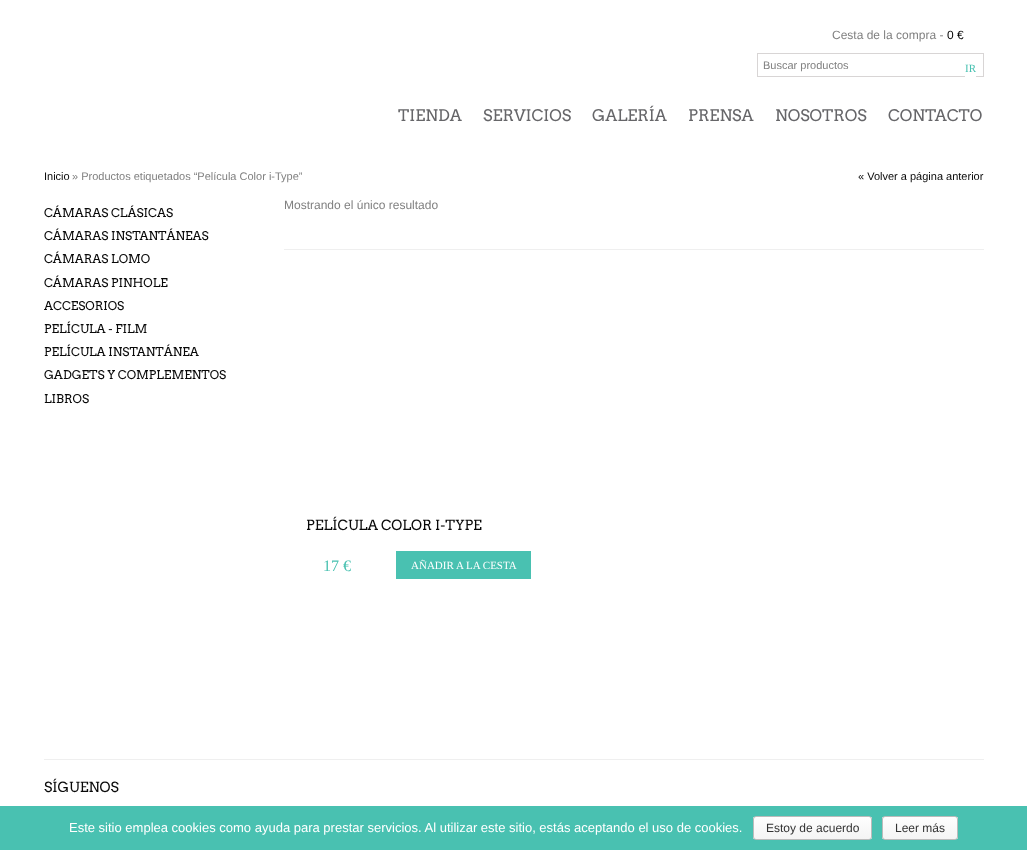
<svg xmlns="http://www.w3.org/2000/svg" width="1027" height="850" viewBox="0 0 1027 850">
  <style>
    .t1 { font: 12px Liberation Sans; fill: #818181; }
    .t2 { font: 12px Liberation Sans; fill: #000; }
    .t3 { font: 11px Liberation Sans; fill: #818181; }
    .t4 { font: 11px Liberation Serif; fill: #49c1b1; }
    .t5 { font: 16px Arvo; fill: #666669; }
    .t6 { font: 11px Liberation Sans; fill: #090909; }
    .t7 { font: 12px Arvo; fill: #090909; }
    .t8 { font: 14px Arvo; fill: #090909; }
    .t9 { font: 16px Liberation Serif; fill: #49c1b1; }
    .t10 { font: 11px Liberation Serif; fill: #fff; }
    .t11 { font: 13px Liberation Sans; fill: #fff; }
    .t12 { font: 12px Liberation Sans; fill: #333; }
  </style>
  <defs>
    <clipPath id="clip1"><rect x="753" y="816" width="119" height="24" rx="3"/></clipPath>
    <linearGradient id="g1" gradientUnits="userSpaceOnUse" x1="813" y1="817" x2="813" y2="839"><stop offset="0" stop-color="#fefefe"/><stop offset="1" stop-color="#f4f4f4"/></linearGradient>
    <clipPath id="clip2"><rect x="882" y="816" width="76" height="24" rx="3"/></clipPath>
    <linearGradient id="g2" gradientUnits="userSpaceOnUse" x1="920" y1="817" x2="920" y2="839"><stop offset="0" stop-color="#fefefe"/><stop offset="1" stop-color="#f4f4f4"/></linearGradient>
  </defs>
  <rect width="100%" height="100%" fill="#fff"/>
  <text x="832" y="39" class="t1">Cesta de la compra -</text>
  <text x="947" y="39" class="t2">0 €</text>
  <rect x="757.5" y="53.5" width="226" height="23" fill="none" stroke="#d8d5d5"/>
  <text x="763" y="69" class="t3">Buscar productos</text>
  <rect x="965" y="76" width="11" height="1" fill="#fff"/>
  <text x="965" y="72" class="t4">IR</text>
  <text x="398" y="121" class="t5">TIENDA</text>
  <text x="483" y="121" class="t5">SERVICIOS</text>
  <text x="592" y="121" class="t5">GALERÍA</text>
  <text x="688" y="121" class="t5">PRENSA</text>
  <text x="775" y="121" class="t5">NOSOTROS</text>
  <text x="888" y="121" class="t5">CONTACTO</text>
  <text x="44" y="180" class="t6">Inicio</text>
  <text x="72" y="180" class="t3">» Productos etiquetados “Película Color i-Type”</text>
  <text x="858" y="180" class="t6">« Volver a página anterior</text>
  <text x="44" y="217" class="t7">CÁMARAS CLÁSICAS</text>
  <text x="44" y="240" class="t7">CÁMARAS INSTANTÁNEAS</text>
  <text x="44" y="263" class="t7">CÁMARAS LOMO</text>
  <text x="44" y="287" class="t7">CÁMARAS PINHOLE</text>
  <text x="44" y="310" class="t7">ACCESORIOS</text>
  <text x="44" y="333" class="t7">PELÍCULA - FILM</text>
  <text x="44" y="356" class="t7">PELÍCULA INSTANTÁNEA</text>
  <text x="44" y="379" class="t7">GADGETS Y COMPLEMENTOS</text>
  <text x="44" y="403" class="t7">LIBROS</text>
  <rect x="284" y="249" width="700" height="1" fill="#efefef"/>
  <text x="284" y="209" class="t1">Mostrando el único resultado</text>
  <text x="306" y="530" class="t8">PELÍCULA COLOR I-TYPE</text>
  <text x="323" y="571" class="t9">17 €</text>
  <rect x="396" y="551" width="135" height="28" fill="#49c1b1"/>
  <text x="411" y="569" class="t10">AÑADIR A LA CESTA</text>
  <rect x="44" y="759" width="940" height="1" fill="#efefef"/>
  <text x="44" y="792" class="t8">SÍGUENOS</text>
  <rect x="0" y="806" width="1027" height="44" fill="#49c1b1"/>
  <text x="69" y="832" class="t11">Este sitio emplea cookies como ayuda para prestar servicios. Al utilizar este sitio, estás aceptando el uso de cookies.</text>
  <g clip-path="url(#clip1)">
    <rect x="753" y="817" width="119" height="22" fill="url(#g1)"/>
  </g>
  <rect x="753.5" y="816.5" width="118" height="23" rx="2.5" fill="none" stroke="#bbb"/>
  <text x="766" y="832" class="t12">Estoy de acuerdo</text>
  <g clip-path="url(#clip2)">
    <rect x="882" y="817" width="76" height="22" fill="url(#g2)"/>
  </g>
  <rect x="882.5" y="816.5" width="75" height="23" rx="2.5" fill="none" stroke="#bbb"/>
  <text x="895" y="832" class="t12">Leer más</text>
</svg>
